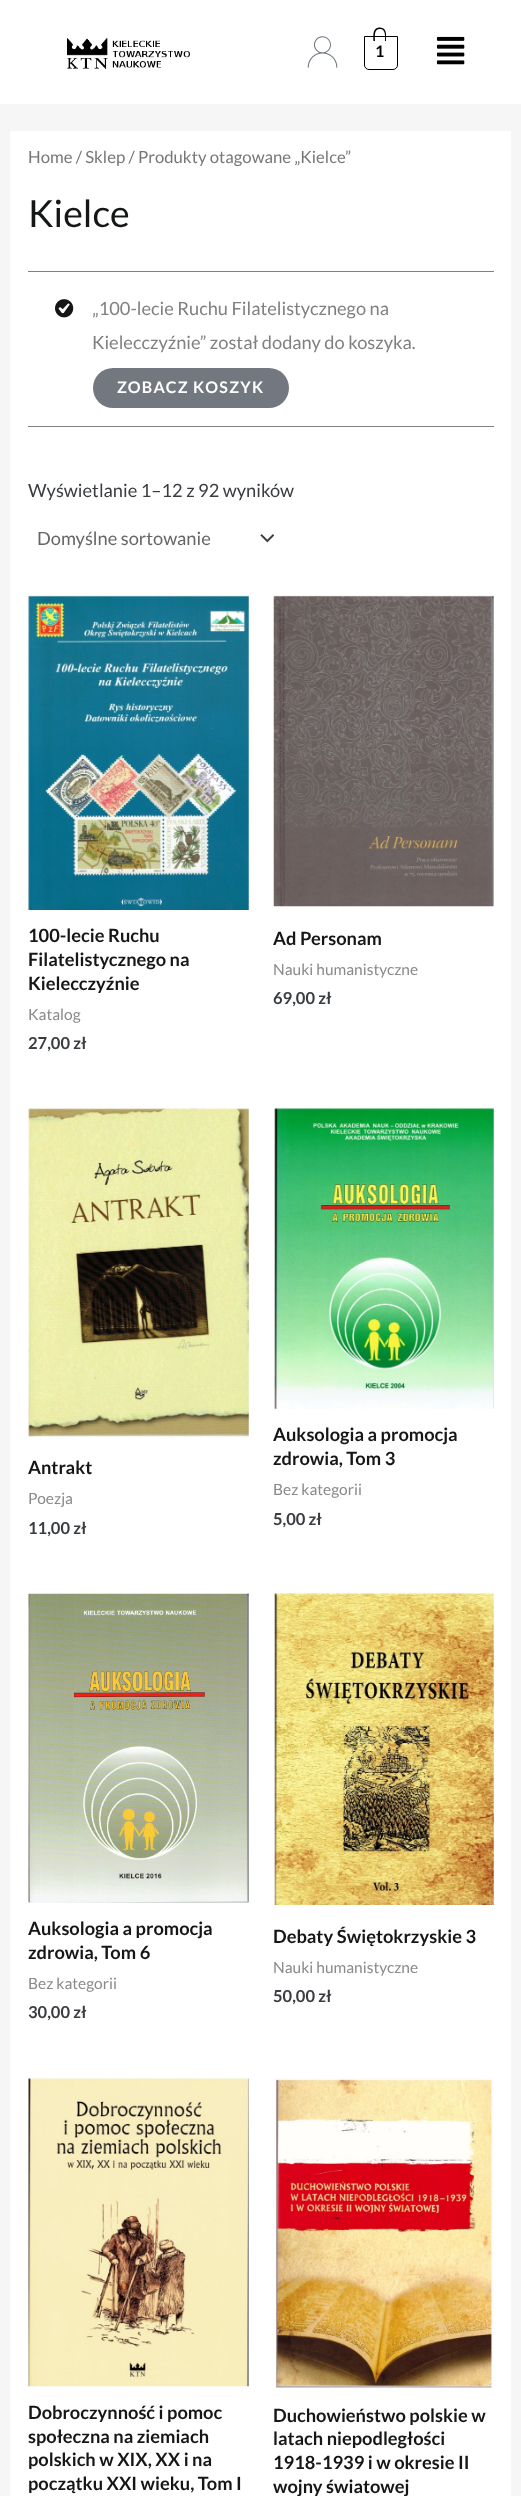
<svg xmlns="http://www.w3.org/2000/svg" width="521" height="2496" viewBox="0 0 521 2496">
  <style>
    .t1 { font: bold 16px Lato; fill: #000; }
    .t2 { font: 16.75px Lato; fill: #777; }
    .t3 { font: 37.5px Lato; fill: #151616; }
    .t4 { font: 18.25px Lato; fill: #808080; }
    .t5 { font: bold 16px Lato; letter-spacing: 1.25px; fill: #fff; }
    .t6 { font: 18.25px Lato; fill: #393c40; }
    .t7 { font: 18.25px Lato; fill: #666; }
    .t8 { font: bold 18.25px Lato; fill: #151616; }
    .t9 { font: 15.5px Lato; fill: #888a8c; }
    .t10 { font: bold 16.5px Lato; fill: #393c40; }
  </style>
  <rect width="100%" height="100%" fill="#f6f6f6"/>
  <rect x="0" y="0" width="521" height="104" fill="#fff"/>
  <image x="67" y="38" width="123" height="31" href="images/1.png"/>
  <image x="307" y="36" width="31" height="32" href="images/2.png"/>
  <path d="M364.5 36.5H397.5V65C397.5 67.5 395.5 69.5 393 69.5H369C366.5 69.5 364.5 67.5 364.5 65Z" fill="none" stroke="#000"/>
  <path d="M380 27.5C387.5 27.5 386 36 386 41H373.5C373.5 36 372 27.5 380 27.5ZM380 29C386 29 385 37 385 41H375C375 37 373.5 29 380 29Z" fill="#000" fill-rule="evenodd"/>
  <text x="375" y="57" class="t1">1</text>
  <image x="436" y="36" width="29" height="29" href="images/3.png"/>
  <rect x="10" y="131" width="501" height="2365" fill="#fff"/>
  <text x="28" y="163" class="t2">Home / Sklep / Produkty otagowane „Kielce”</text>
  <text x="28" y="227" class="t3">Kielce</text>
  <rect x="28" y="271" width="466" height="1" fill="#808080"/>
  <rect x="28" y="426" width="466" height="1" fill="#808080"/>
  <image x="55" y="299" width="19" height="19" href="images/4.png"/>
  <text x="92" y="315" class="t4">„100-lecie Ruchu Filatelistycznego na</text>
  <text x="92" y="349" class="t4">Kielecczyźnie” został dodany do koszyka.</text>
  <rect x="93" y="368" width="196" height="40" rx="20" fill="#737880"/>
  <text x="117" y="393" class="t5">ZOBACZ KOSZYK</text>
  <text x="28" y="497" class="t6">Wyświetlanie 1–12 z 92 wyników</text>
  <image x="260" y="534" width="14" height="9" href="images/5.png"/>
  <text x="37" y="545" class="t7">Domyślne sortowanie</text>
  <image x="27" y="595" width="222" height="315" href="images/6.png"/>
  <text x="28" y="942" class="t8">100-lecie Ruchu</text>
  <text x="28" y="966" class="t8">Filatelistycznego na</text>
  <text x="28" y="990" class="t8">Kielecczyźnie</text>
  <text x="28" y="1020" class="t9">Katalog</text>
  <text x="28" y="1049" class="t10">27,00 zł</text>
  <image x="273" y="595" width="221" height="312" href="images/7.png"/>
  <text x="273" y="945" class="t8">Ad Personam</text>
  <text x="273" y="975" class="t9">Nauki humanistyczne</text>
  <text x="273" y="1004" class="t10">69,00 zł</text>
  <image x="27" y="1107" width="222" height="330" href="images/8.png"/>
  <text x="28" y="1474" class="t8">Antrakt</text>
  <text x="28" y="1504" class="t9">Poezja</text>
  <text x="28" y="1534" class="t10">11,00 zł</text>
  <image x="274" y="1107" width="220" height="302" href="images/9.png"/>
  <text x="273" y="1441" class="t8">Auksologia a promocja</text>
  <text x="273" y="1465" class="t8">zdrowia, Tom 3</text>
  <text x="273" y="1495" class="t9">Bez kategorii</text>
  <text x="273" y="1525" class="t10">5,00 zł</text>
  <image x="28" y="1593" width="221" height="310" href="images/10.png"/>
  <text x="28" y="1935" class="t8">Auksologia a promocja</text>
  <text x="28" y="1959" class="t8">zdrowia, Tom 6</text>
  <text x="28" y="1989" class="t9">Bez kategorii</text>
  <text x="28" y="2018" class="t10">30,00 zł</text>
  <image x="274" y="1592" width="220" height="313" href="images/11.png"/>
  <text x="273" y="1943" class="t8">Debaty Świętokrzyskie 3</text>
  <text x="273" y="1973" class="t9">Nauki humanistyczne</text>
  <text x="273" y="2002" class="t10">50,00 zł</text>
  <image x="27" y="2077" width="222" height="310" href="images/12.png"/>
  <text x="28" y="2419" class="t8">Dobroczynność i pomoc</text>
  <text x="28" y="2443" class="t8">społeczna na ziemiach</text>
  <text x="28" y="2466" class="t8">polskich w XIX, XX i na</text>
  <text x="28" y="2490" class="t8">początku XXI wieku, Tom I</text>
  <image x="274" y="2077" width="220" height="311" href="images/13.png"/>
  <text x="273" y="2422" class="t8">Duchowieństwo polskie w</text>
  <text x="273" y="2445" class="t8">latach niepodległości</text>
  <text x="273" y="2469" class="t8">1918-1939 i w okresie II</text>
  <text x="273" y="2493" class="t8">wojny światowej</text>
</svg>
